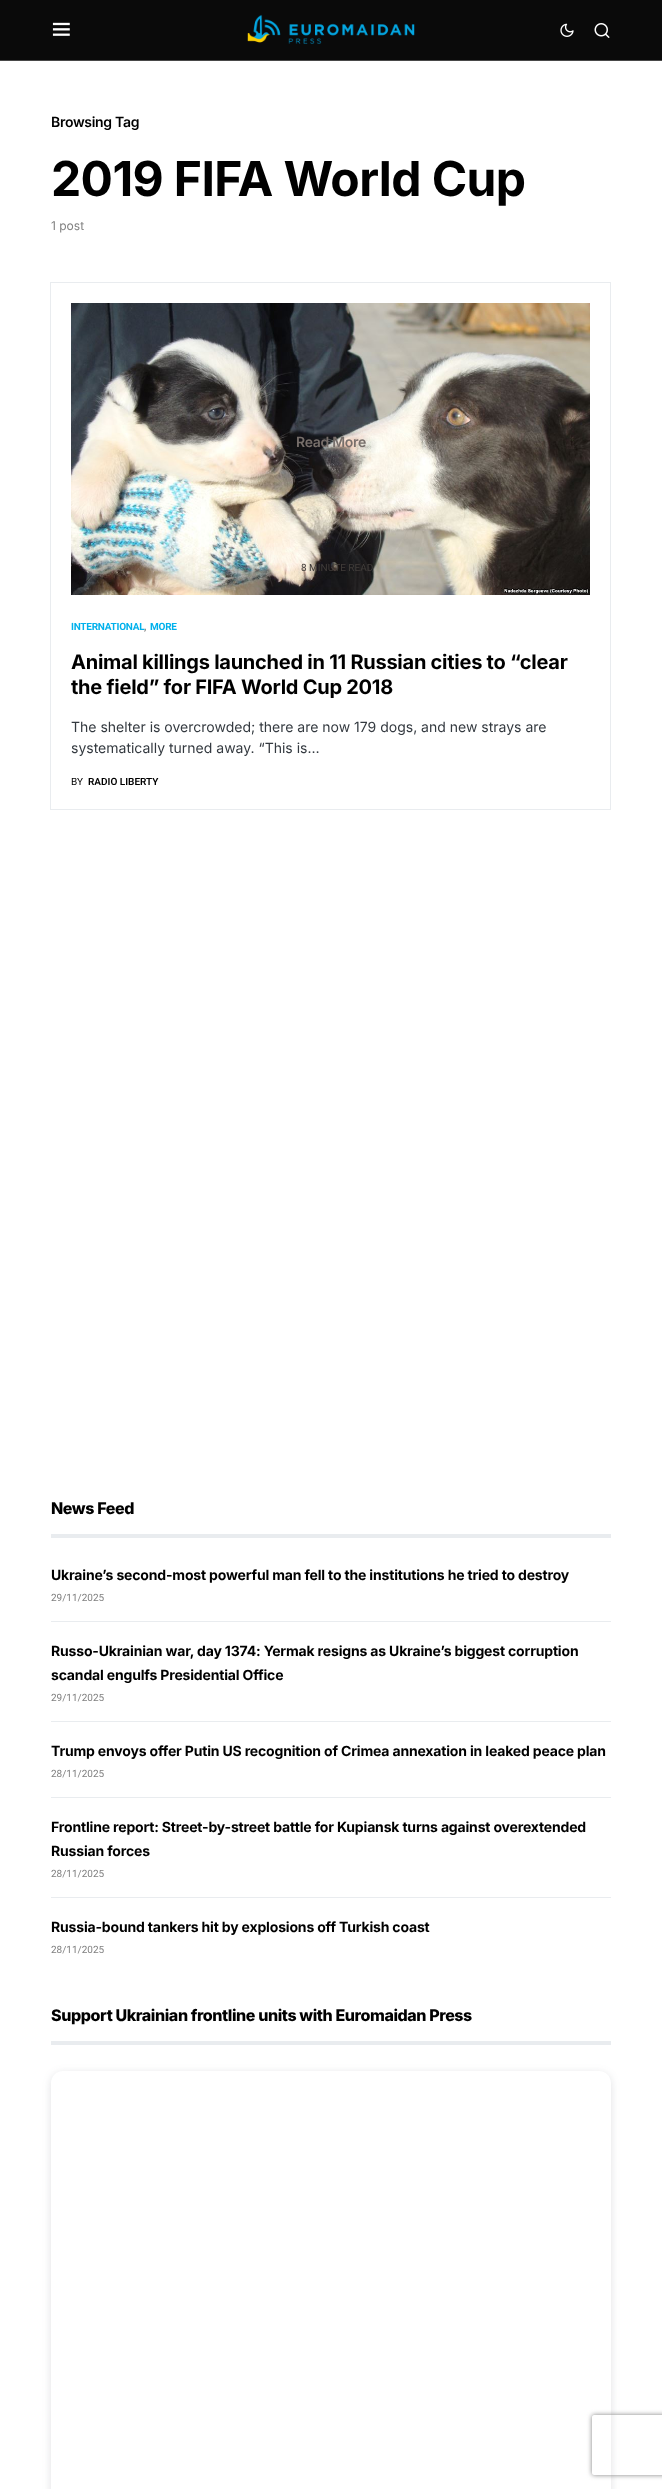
<svg xmlns="http://www.w3.org/2000/svg" width="662" height="2489" viewBox="0 0 662 2489">
  <style>
    .t1 { font: 600 14px Inter; letter-spacing: -0.3px; fill: #000; }
    .t2 { font: bold 48px Inter; letter-spacing: -0.6px; fill: #000; }
    .t3 { font: 12px Inter; fill: #818181; }
    .t4 { font: 600 14px Inter; letter-spacing: -0.3px; fill: #776f6b; }
    .t5 { font: 10px Roboto; fill: #413d3a; }
    .t6 { font: bold 10px Roboto; letter-spacing: -0.25px; fill: #818181; }
    .t7 { font: bold 10px Roboto; letter-spacing: -0.25px; fill: #00b1ec; }
    .t8 { font: bold 20px Inter; letter-spacing: -0.25px; fill: #000; }
    .t9 { font: 14px Inter; fill: #343a40; }
    .t10 { font: 10px Roboto; fill: #000; }
    .t11 { font: 600 10px Roboto; fill: #000; }
    .t12 { font: 800 16px Inter; letter-spacing: -0.4px; fill: #000; }
    .t13 { font: bold 14px Inter; letter-spacing: -0.17px; fill: #000; }
    .t14 { font: 10px Roboto; fill: #818181; }
  </style>
  <defs>
    <clipPath id="clip1"><path d="M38 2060H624V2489H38ZM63 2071H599C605.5 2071 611 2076.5 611 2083V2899C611 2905.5 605.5 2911 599 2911H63C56.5 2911 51 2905.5 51 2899V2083C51 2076.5 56.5 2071 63 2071Z" clip-rule="evenodd"/></clipPath>
    <clipPath id="clip2"><path d="M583 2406H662V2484H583ZM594 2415H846C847 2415 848 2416 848 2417V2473C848 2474 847 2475 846 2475H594C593 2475 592 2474 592 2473V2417C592 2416 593 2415 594 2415Z" clip-rule="evenodd"/></clipPath>
  </defs>
  <rect width="100%" height="100%" fill="#fff"/>
  <rect x="0" y="0" width="662" height="60" fill="#0a0a0a"/>
  <rect x="0" y="60" width="662" height="1" fill="#494949"/>
  <image x="52" y="22" width="18" height="14" href="images/1.png"/>
  <image x="247" y="14" width="168" height="30" href="images/2.png"/>
  <image x="560" y="23" width="14" height="14" href="images/3.png"/>
  <image x="594" y="23" width="16" height="15" href="images/4.png"/>
  <text x="51" y="127" class="t1">Browsing Tag</text>
  <text x="51" y="196" class="t2">2019 FIFA World Cup</text>
  <text x="51" y="230" class="t3">1 post</text>
  <rect x="50.5" y="282.5" width="560" height="527" fill="none" stroke="#e9ecef"/>
  <image x="71" y="303" width="519" height="292" href="images/5.png"/>
  <text x="296" y="447" class="t4">Read More</text>
  <text x="301" y="571" class="t5">8 MINUTE READ</text>
  <text x="144" y="630" class="t6">,</text>
  <text x="71" y="630" class="t7">INTERNATIONAL</text>
  <text x="150" y="630" class="t7">MORE</text>
  <text x="71" y="669" class="t8">Animal killings launched in 11 Russian cities to “clear</text>
  <text x="71" y="694" class="t8">the field” for FIFA World Cup 2018</text>
  <text x="71" y="732" class="t9">The shelter is overcrowded; there are now 179 dogs, and new strays are</text>
  <text x="71" y="753" class="t9">systematically turned away. “This is…</text>
  <text x="71" y="785" class="t10">BY</text>
  <text x="88" y="785" class="t11">RADIO LIBERTY</text>
  <rect x="51" y="1534" width="560" height="4" fill="#e9ecef"/>
  <text x="51" y="1514" class="t12">News Feed</text>
  <rect x="51" y="1621" width="560" height="1" fill="#e9ecef"/>
  <text x="51" y="1580" class="t13">Ukraine’s second-most powerful man fell to the institutions he tried to destroy</text>
  <text x="51" y="1601" class="t14">29/11/2025</text>
  <rect x="51" y="1721" width="560" height="1" fill="#e9ecef"/>
  <text x="51" y="1656" class="t13">Russo-Ukrainian war, day 1374: Yermak resigns as Ukraine’s biggest corruption</text>
  <text x="51" y="1680" class="t13">scandal engulfs Presidential Office</text>
  <text x="51" y="1701" class="t14">29/11/2025</text>
  <rect x="51" y="1797" width="560" height="1" fill="#e9ecef"/>
  <text x="51" y="1756" class="t13">Trump envoys offer Putin US recognition of Crimea annexation in leaked peace plan</text>
  <text x="51" y="1777" class="t14">28/11/2025</text>
  <rect x="51" y="1897" width="560" height="1" fill="#e9ecef"/>
  <text x="51" y="1832" class="t13">Frontline report: Street-by-street battle for Kupiansk turns against overextended</text>
  <text x="51" y="1856" class="t13">Russian forces</text>
  <text x="51" y="1877" class="t14">28/11/2025</text>
  <text x="51" y="1932" class="t13">Russia-bound tankers hit by explosions off Turkish coast</text>
  <text x="51" y="1953" class="t14">28/11/2025</text>
  <rect x="51" y="2041" width="560" height="4" fill="#e9ecef"/>
  <text x="51" y="2021" class="t12">Support Ukrainian frontline units with Euromaidan Press</text>
  <g clip-path="url(#clip1)">
    <rect x="51" y="2073" width="560" height="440" rx="12" fill="#3f455129" filter="blur(4px)"/>
  </g>
  <g clip-path="url(#clip2)">
    <rect x="592" y="2415" width="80" height="60" rx="2" fill="#808080" filter="blur(2.5px)"/>
  </g>
</svg>
